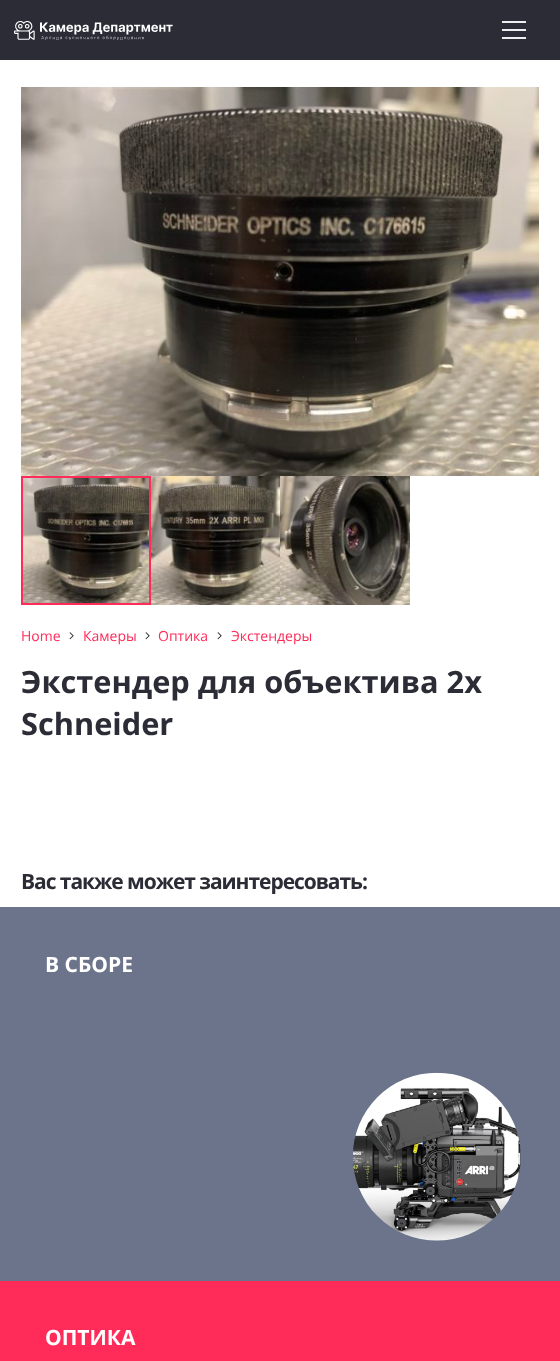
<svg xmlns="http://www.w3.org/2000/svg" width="560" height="1361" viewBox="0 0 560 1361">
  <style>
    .t1 { font: 14px Open Sans; fill: #ff2b58; }
    .t2 { font: bold 30.75px Open Sans; fill: #2b2c36; }
    .t3 { font: bold 21px Open Sans; letter-spacing: -1.05px; fill: #2b2c36; }
    .t4 { font: bold 21px Open Sans; fill: #fff; }
  </style>
  <rect width="100%" height="100%" fill="#fff"/>
  <rect x="0" y="0" width="560" height="60" fill="#2b2c36"/>
  <image x="14" y="21" width="159" height="19" href="images/1.png"/>
  <rect x="502" y="29" width="24" height="2" fill="#edf0f2"/>
  <rect x="502" y="21" width="24" height="2" fill="#edf0f2"/>
  <rect x="502" y="37" width="24" height="2" fill="#edf0f2"/>
  <image x="21" y="87" width="518" height="389" href="images/2.png"/>
  <rect x="22" y="477" width="128" height="127" fill="none" stroke="#ff2b58" stroke-width="2"/>
  <image x="23" y="478" width="126" height="125" href="images/3.png"/>
  <image x="151" y="476" width="129" height="129" href="images/4.png"/>
  <image x="280" y="476" width="130" height="129" href="images/5.png"/>
  <text x="21" y="641" class="t1">Home</text>
  <image x="69" y="632" width="5" height="8" href="images/6.png"/>
  <text x="83" y="641" class="t1">Камеры</text>
  <image x="145" y="632" width="5" height="8" href="images/6.png"/>
  <text x="158" y="641" class="t1">Оптика</text>
  <image x="217" y="632" width="5" height="8" href="images/6.png"/>
  <text x="231" y="641" class="t1">Экстендеры</text>
  <text x="21" y="693" class="t2">Экстендер для объектива 2х</text>
  <text x="21" y="735" class="t2">Schneider</text>
  <text x="21" y="889" class="t3">Вас также может заинтересовать:</text>
  <rect x="0" y="907" width="560" height="374" fill="#6b748b"/>
  <text x="45" y="972" class="t4">В СБОРЕ</text>
  <image x="353" y="1072" width="168" height="169" href="images/7.png"/>
  <rect x="0" y="1281" width="560" height="80" fill="#ff2b58"/>
  <text x="45" y="1345" class="t4">ОПТИКА</text>
</svg>
